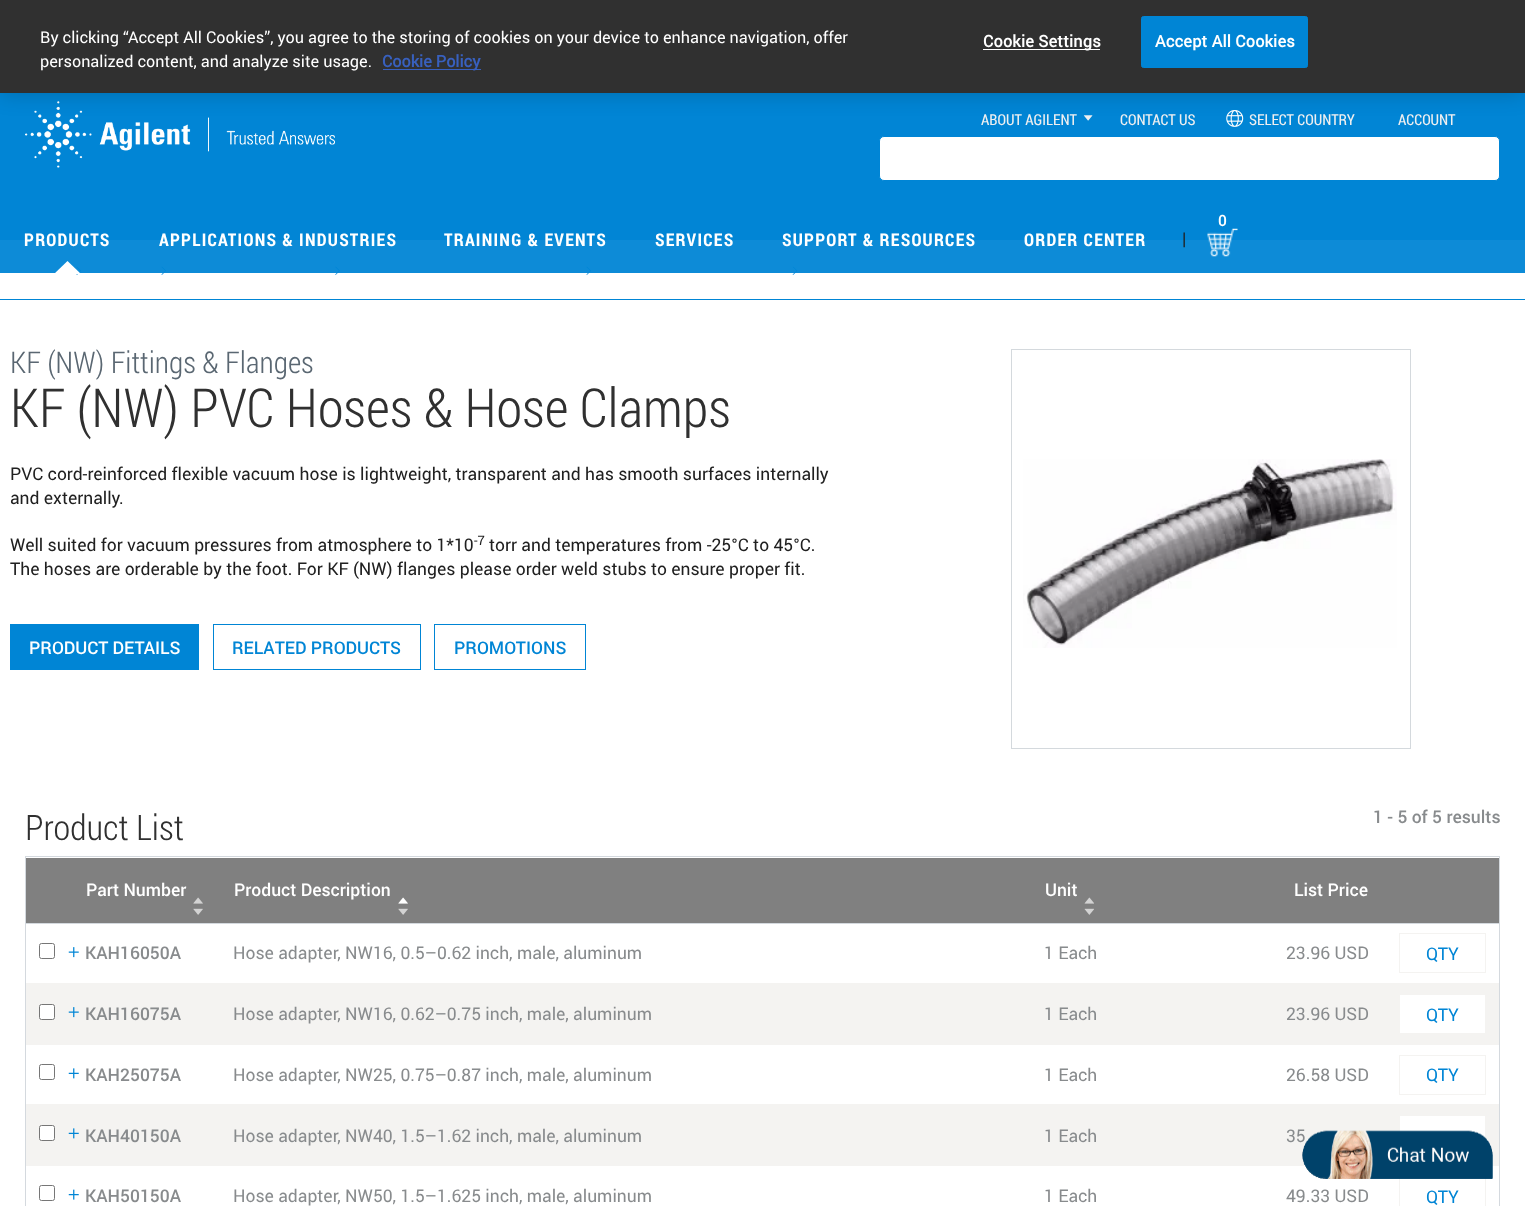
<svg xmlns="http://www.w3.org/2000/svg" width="1525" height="1206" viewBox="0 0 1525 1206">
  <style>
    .t1 { font: 16.25px Roboto; fill: #fff; }
    .t2 { font: bold 16.25px Roboto; fill: #3860be; }
    .t3 { font: bold 16.25px Roboto; letter-spacing: 0.2px; fill: #fff; }
    .t4 { font: 15px Roboto Condensed; fill: #efeff0; }
    .t5 { font: bold 15px Roboto; letter-spacing: 1.25px; fill: #fff; }
    .t6 { font: bold 17.5px Roboto Condensed; letter-spacing: 1.25px; fill: #fff; }
    .t7 { font: 17.5px Roboto; fill: #202020; }
    .t8 { font: 300 30px Roboto Condensed; fill: #5a6772; }
    .t9 { font: 300 53.75px Roboto Condensed; fill: #303030; }
    .t10 { font: 13px Roboto; fill: #202020; }
    .t11 { font: 500 17.5px Roboto; fill: #fff; }
    .t12 { font: 500 17.5px Roboto; fill: #0085d5; }
    .t13 { font: 300 35px Roboto Condensed; fill: #303030; }
    .t14 { font: 500 17.5px Roboto; fill: #888b8d; }
    .t15 { font: 17.5px Roboto; fill: #888b8d; }
    .t16 { font: 17.5px Roboto; fill: #0085d5; }
  </style>
  <rect width="100%" height="100%" fill="#fff"/>
  <rect x="0" y="93" width="1525" height="147" fill="#1a91d9"/>
  <image x="76" y="266" width="6" height="9" href="images/5.png"/>
  <image x="161" y="266" width="6" height="9" href="images/5.png"/>
  <image x="335" y="266" width="5" height="9" href="images/6.png"/>
  <image x="586" y="266" width="6" height="9" href="images/5.png"/>
  <image x="792" y="266" width="6" height="9" href="images/7.png"/>
  <rect x="0" y="93" width="1525" height="180" fill="#0085d5f2"/>
  <image x="25" y="101" width="310" height="67" href="images/1.png"/>
  <image x="1083" y="115" width="10" height="6" href="images/2.png"/>
  <image x="1226" y="110" width="18" height="17" href="images/3.png"/>
  <rect x="0" y="0" width="1525" height="93" fill="#00000033" filter="blur(11px)"/>
  <rect x="0" y="0" width="1525" height="93" fill="#303030"/>
  <text x="40" y="43" class="t1">By clicking “Accept All Cookies”, you agree to the storing of cookies on your device to enhance navigation, offer</text>
  <text x="40" y="67" class="t1">personalized content, and analyze site usage.</text>
  <rect x="383" y="69" width="98" height="1" fill="#3860be"/>
  <text x="382" y="67" class="t2">Cookie Policy</text>
  <rect x="983" y="49" width="117" height="1" fill="#fff"/>
  <text x="983" y="47" class="t3">Cookie Settings</text>
  <rect x="1141.5" y="16.5" width="166" height="51" rx="2" fill="#0085d5" stroke="#0085d5"/>
  <text x="1155" y="47" class="t3">Accept All Cookies</text>
  <text x="981" y="125" class="t4">ABOUT AGILENT</text>
  <text x="1120" y="125" class="t4">CONTACT US</text>
  <text x="1249" y="125" class="t4">SELECT COUNTRY</text>
  <text x="1398" y="125" class="t4">ACCOUNT</text>
  <rect x="879.5" y="136.5" width="620" height="44" rx="4.5" fill="#fff" stroke="#0085d5"/>
  <text x="1218" y="226" class="t5">0</text>
  <image x="1207" y="228" width="31" height="29" href="images/4.png"/>
  <text x="24" y="246" class="t6">PRODUCTS</text>
  <path d="M81 274H54L67.5 261Z" fill="#fff"/>
  <text x="159" y="246" class="t6">APPLICATIONS &amp; INDUSTRIES</text>
  <text x="444" y="246" class="t6">TRAINING &amp; EVENTS</text>
  <text x="655" y="246" class="t6">SERVICES</text>
  <text x="782" y="246" class="t6">SUPPORT &amp; RESOURCES</text>
  <text x="1024" y="246" class="t6">ORDER CENTER</text>
  <text x="1182" y="245" class="t7">|</text>
  <rect x="0" y="299" width="1525" height="1" fill="#0085d5"/>
  <text x="10" y="373" class="t8">KF (NW) Fittings &amp; Flanges</text>
  <text x="10" y="427" class="t9">KF (NW) PVC Hoses &amp; Hose Clamps</text>
  <text x="10" y="480" class="t7">PVC cord-reinforced flexible vacuum hose is lightweight, transparent and has smooth surfaces internally</text>
  <text x="10" y="504" class="t7">and externally.</text>
  <text x="10" y="551" class="t7">Well suited for vacuum pressures from atmosphere to 1*10</text>
  <text x="474" y="545" class="t10">-7</text>
  <text x="489" y="551" class="t7">torr and temperatures from -25°C to 45°C.</text>
  <text x="10" y="575" class="t7">The hoses are orderable by the foot. For KF (NW) flanges please order weld stubs to ensure proper fit.</text>
  <rect x="10" y="624" width="189" height="46" fill="#0085d5"/>
  <text x="29" y="654" class="t11">PRODUCT DETAILS</text>
  <rect x="213.5" y="624.5" width="207" height="45" fill="none" stroke="#0085d5"/>
  <text x="232" y="654" class="t12">RELATED PRODUCTS</text>
  <rect x="434.5" y="624.5" width="151" height="45" fill="none" stroke="#0085d5"/>
  <text x="454" y="654" class="t12">PROMOTIONS</text>
  <rect x="1011.5" y="349.5" width="399" height="399" fill="none" stroke="#d4d9dd"/>
  <image x="1023" y="459" width="374" height="189" href="images/8.png"/>
  <text x="25" y="840" class="t13">Product List</text>
  <text x="1373" y="823" class="t14">1 - 5 of 5 results</text>
  <rect x="26" y="858" width="1473" height="65" fill="#808080"/>
  <rect x="25" y="856" width="1475" height="1" fill="#d4d9de"/>
  <rect x="25" y="983" width="1475" height="1" fill="#f4f3f1"/>
  <rect x="1499" y="923" width="1" height="122" fill="#d4d9de"/>
  <rect x="1499" y="856" width="1" height="68" fill="#d4d9de"/>
  <rect x="25" y="1104" width="1475" height="1" fill="#f4f3f1"/>
  <rect x="1499" y="1104" width="1" height="62" fill="#d4d9de"/>
  <rect x="25" y="1165" width="1" height="41" fill="#d4d9de"/>
  <rect x="25" y="1165" width="1475" height="1" fill="#f4f3f1"/>
  <rect x="25" y="1044" width="1" height="122" fill="#d4d9de"/>
  <rect x="25" y="1044" width="1475" height="1" fill="#f4f3f1"/>
  <rect x="25" y="923" width="1" height="122" fill="#d4d9de"/>
  <rect x="25" y="923" width="1475" height="1" fill="#d4d9de"/>
  <rect x="25" y="856" width="1" height="68" fill="#d4d9de"/>
  <text x="86" y="896" class="t11">Part Number</text>
  <image x="193" y="897" width="10" height="7" href="images/9.png"/>
  <image x="193" y="908" width="10" height="7" href="images/10.png"/>
  <text x="234" y="896" class="t11">Product Description</text>
  <image x="398" y="897" width="10" height="7" href="images/11.png"/>
  <image x="398" y="908" width="10" height="7" href="images/10.png"/>
  <text x="1045" y="896" class="t11">Unit</text>
  <image x="1084" y="897" width="10" height="7" href="images/12.png"/>
  <image x="1084" y="908" width="10" height="7" href="images/13.png"/>
  <text x="1294" y="896" class="t11">List Price</text>
  <rect x="39.5" y="943.5" width="15" height="15" rx="2" fill="none" stroke="#767676"/>
  <image x="68" y="947" width="11" height="11" href="images/14.png"/>
  <text x="85" y="959" class="t14">KAH16050A</text>
  <text x="233" y="959" class="t15">Hose adapter, NW16, 0.5–0.62 inch, male, aluminum</text>
  <text x="1044" y="959" class="t15">1 Each</text>
  <text x="1286" y="959" class="t15">23.96 USD</text>
  <rect x="1399.5" y="933.5" width="86" height="39" fill="none" stroke="#f4f3f1"/>
  <text x="1426" y="960" class="t16">QTY</text>
  <rect x="26" y="984" width="1473" height="60" fill="#f4f3f1"/>
  <rect x="39.5" y="1004.5" width="15" height="15" rx="2" fill="#fff" stroke="#767676"/>
  <image x="68" y="1007" width="11" height="11" href="images/15.png"/>
  <text x="85" y="1020" class="t14">KAH16075A</text>
  <text x="233" y="1020" class="t15">Hose adapter, NW16, 0.62–0.75 inch, male, aluminum</text>
  <text x="1044" y="1020" class="t15">1 Each</text>
  <text x="1286" y="1020" class="t15">23.96 USD</text>
  <rect x="1400" y="995" width="85" height="38" fill="#fff"/>
  <text x="1426" y="1021" class="t16">QTY</text>
  <rect x="39.5" y="1064.5" width="15" height="15" rx="2" fill="none" stroke="#767676"/>
  <image x="68" y="1068" width="11" height="11" href="images/16.png"/>
  <text x="85" y="1081" class="t14">KAH25075A</text>
  <text x="233" y="1081" class="t15">Hose adapter, NW25, 0.75–0.87 inch, male, aluminum</text>
  <text x="1044" y="1081" class="t15">1 Each</text>
  <text x="1286" y="1081" class="t15">26.58 USD</text>
  <rect x="1499" y="1044" width="1" height="61" fill="#d4d9de"/>
  <rect x="1399.5" y="1055.5" width="86" height="39" fill="none" stroke="#f4f3f1"/>
  <text x="1426" y="1081" class="t16">QTY</text>
  <rect x="26" y="1105" width="1473" height="60" fill="#f4f3f1"/>
  <rect x="39.5" y="1125.5" width="15" height="15" rx="2" fill="#fff" stroke="#767676"/>
  <image x="68" y="1128" width="11" height="11" href="images/17.png"/>
  <text x="85" y="1142" class="t14">KAH40150A</text>
  <text x="233" y="1142" class="t15">Hose adapter, NW40, 1.5–1.62 inch, male, aluminum</text>
  <text x="1044" y="1142" class="t15">1 Each</text>
  <text x="1286" y="1142" class="t15">35</text>
  <rect x="1400" y="1116" width="85" height="22" fill="#fff"/>
  <rect x="39.5" y="1185.5" width="15" height="15" rx="2" fill="none" stroke="#767676"/>
  <image x="68" y="1189" width="11" height="11" href="images/18.png"/>
  <text x="85" y="1202" class="t14">KAH50150A</text>
  <text x="233" y="1202" class="t15">Hose adapter, NW50, 1.5–1.625 inch, male, aluminum</text>
  <text x="1044" y="1202" class="t15">1 Each</text>
  <text x="1286" y="1202" class="t15">49.33 USD</text>
  <rect x="1499" y="1165" width="1" height="41" fill="#d4d9de"/>
  <rect x="1399.5" y="1176.5" width="86" height="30" fill="none" stroke="#f4f3f1"/>
  <text x="1426" y="1203" class="t16">QTY</text>
  <image x="1302" y="1130" width="191" height="49" href="images/19.png"/>
  <image x="1302" y="1130" width="191" height="49" href="images/20.png"/>
</svg>
